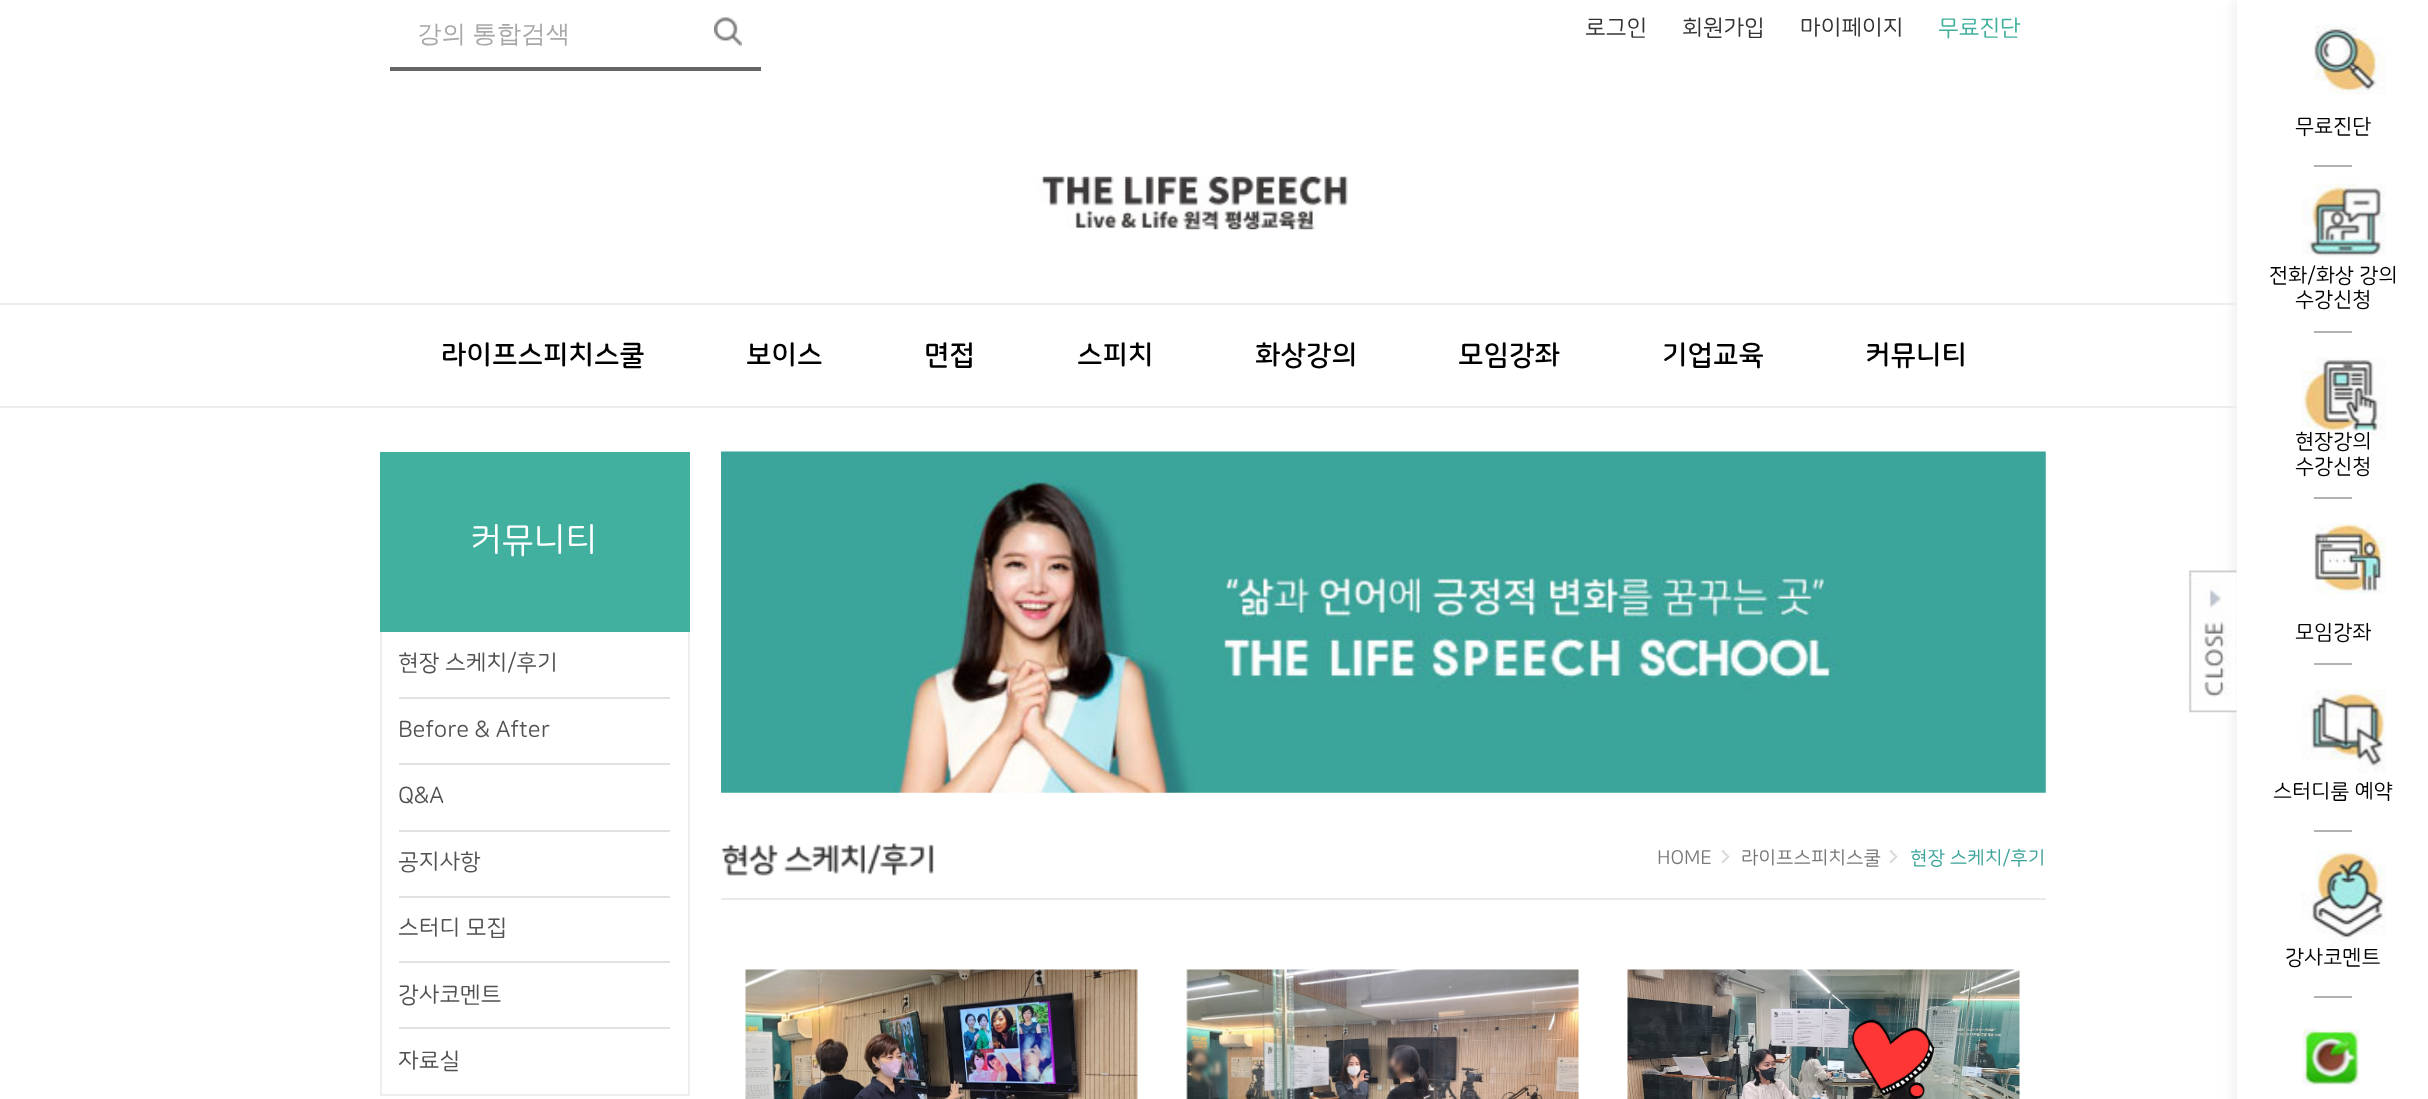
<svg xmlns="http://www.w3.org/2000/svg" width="2428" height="1099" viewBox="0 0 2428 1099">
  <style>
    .t1 { font: 500 24.5px WenQuanYi Zen Hei; fill: #a8a8a8; }
    .t2 { font: 22.75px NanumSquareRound; fill: #333; }
    .t3 { font: 22.75px NanumSquareRound; fill: #41b09f; }
    .t4 { font: bold 28px NanumSquareRound; fill: #000; }
    .t5 { font: 21px NanumSquareRound; fill: #000; }
    .t6 { font: 35px NanumSquareRound; fill: #fff; }
    .t7 { font: 22.75px NanumSquareRound; fill: #515151; }
    .t8 { font: 19.25px NanumSquareRound; fill: #787777; }
    .t9 { font: 19.25px NanumSquareRound; fill: #3ca49b; }
  </style>
  <defs>
    <clipPath id="clip1"><rect x="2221" y="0" width="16" height="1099"/></clipPath>
  </defs>
  <rect width="100%" height="100%" fill="#fff"/>
  <rect x="390" y="67" width="371" height="4" fill="#666"/>
  <text x="417" y="42" word-spacing="-1" class="t1">강의 통합검색</text>
  <image x="714" y="17" width="28" height="29" href="images/1.png"/>
  <text x="1585" y="35" class="t2">로그인</text>
  <text x="1682" y="35" class="t2">회원가입</text>
  <text x="1800" y="35" class="t2">마이페이지</text>
  <text x="1938" y="35" class="t3">무료진단</text>
  <rect x="0" y="406" width="2237" height="2" fill="#ececec"/>
  <text x="441" y="364" class="t4">라이프스피치스쿨</text>
  <text x="746" y="364" class="t4">보이스</text>
  <text x="924" y="364" class="t4">면접</text>
  <text x="1077" y="364" class="t4">스피치</text>
  <text x="1255" y="364" class="t4">화상강의</text>
  <text x="1458" y="364" class="t4">모임강좌</text>
  <text x="1662" y="364" class="t4">기업교육</text>
  <text x="1865" y="364" class="t4">커뮤니티</text>
  <rect x="0" y="303" width="2237" height="2" fill="#ececec"/>
  <g clip-path="url(#clip1)">
    <rect x="2233" y="0" width="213" height="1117" fill="#efefef" filter="blur(6px)"/>
  </g>
  <image x="2314" y="24" width="72" height="71" href="images/2.png"/>
  <text x="2295" y="133" class="t5">무료진단</text>
  <rect x="2314" y="165" width="38" height="2" fill="#b2b2b2"/>
  <image x="2301" y="183" width="85" height="74" href="images/3.png"/>
  <text x="2269" y="282" class="t5">전화/화상 강의</text>
  <text x="2295" y="306" class="t5">수강신청</text>
  <rect x="2314" y="331" width="38" height="2" fill="#b2b2b2"/>
  <image x="2301" y="357" width="85" height="84" href="images/4.png"/>
  <text x="2295" y="448" class="t5">현장강의</text>
  <text x="2295" y="473" class="t5">수강신청</text>
  <rect x="2314" y="497" width="38" height="2" fill="#b2b2b2"/>
  <image x="2189" y="570" width="48" height="143" href="images/5.png"/>
  <image x="2314" y="523" width="72" height="71" href="images/6.png"/>
  <text x="2295" y="639" class="t5">모임강좌</text>
  <rect x="2314" y="663" width="38" height="2" fill="#b2b2b2"/>
  <image x="2302" y="689" width="84" height="84" href="images/7.png"/>
  <text x="2273" y="798" class="t5">스터디룸 예약</text>
  <rect x="2314" y="830" width="38" height="2" fill="#b2b2b2"/>
  <image x="2301" y="850" width="85" height="98" href="images/8.png"/>
  <text x="2285" y="964" class="t5">강사코멘트</text>
  <rect x="2314" y="996" width="38" height="2" fill="#b2b2b2"/>
  <image x="2302" y="1028" width="58" height="58" href="images/9.png"/>
  <image x="1038" y="176" width="310" height="54" href="images/10.png"/>
  <rect x="380" y="452" width="310" height="180" fill="#41b09f"/>
  <text x="470" y="551" class="t6">커뮤니티</text>
  <rect x="688" y="632" width="2" height="464" fill="#eee"/>
  <rect x="380" y="1094" width="310" height="2" fill="#eee"/>
  <rect x="380" y="632" width="2" height="464" fill="#eee"/>
  <rect x="399" y="697" width="271" height="2" fill="#e1e1e1"/>
  <text x="398" y="670" class="t7">현장 스케치/후기</text>
  <rect x="399" y="763" width="271" height="2" fill="#e1e1e1"/>
  <text x="398" y="737" class="t7">Before &amp; After</text>
  <rect x="399" y="830" width="271" height="2" fill="#e1e1e1"/>
  <text x="398" y="803" class="t7">Q&amp;A</text>
  <rect x="399" y="896" width="271" height="2" fill="#e1e1e1"/>
  <text x="398" y="869" class="t7">공지사항</text>
  <rect x="399" y="961" width="271" height="2" fill="#e1e1e1"/>
  <text x="398" y="935" class="t7">스터디 모집</text>
  <rect x="399" y="1027" width="271" height="2" fill="#e1e1e1"/>
  <text x="398" y="1002" class="t7">강사코멘트</text>
  <text x="398" y="1068" class="t7">자료실</text>
  <image x="721" y="451" width="1325" height="342" href="images/11.png"/>
  <image x="721" y="843" width="213" height="33" href="images/12.png"/>
  <text x="1657" y="864" class="t8">HOME</text>
  <image x="1721" y="850" width="9" height="14" href="images/13.png"/>
  <text x="1741" y="864" class="t8">라이프스피치스쿨</text>
  <image x="1889" y="850" width="9" height="14" href="images/14.png"/>
  <text x="1910" y="864" class="t9">현장 스케치/후기</text>
  <rect x="721" y="898" width="1325" height="2" fill="#eaeaea"/>
  <image x="745" y="969" width="393" height="130" href="images/15.png"/>
  <image x="1186" y="969" width="393" height="130" href="images/16.png"/>
  <image x="1627" y="969" width="393" height="130" href="images/17.png"/>
</svg>
